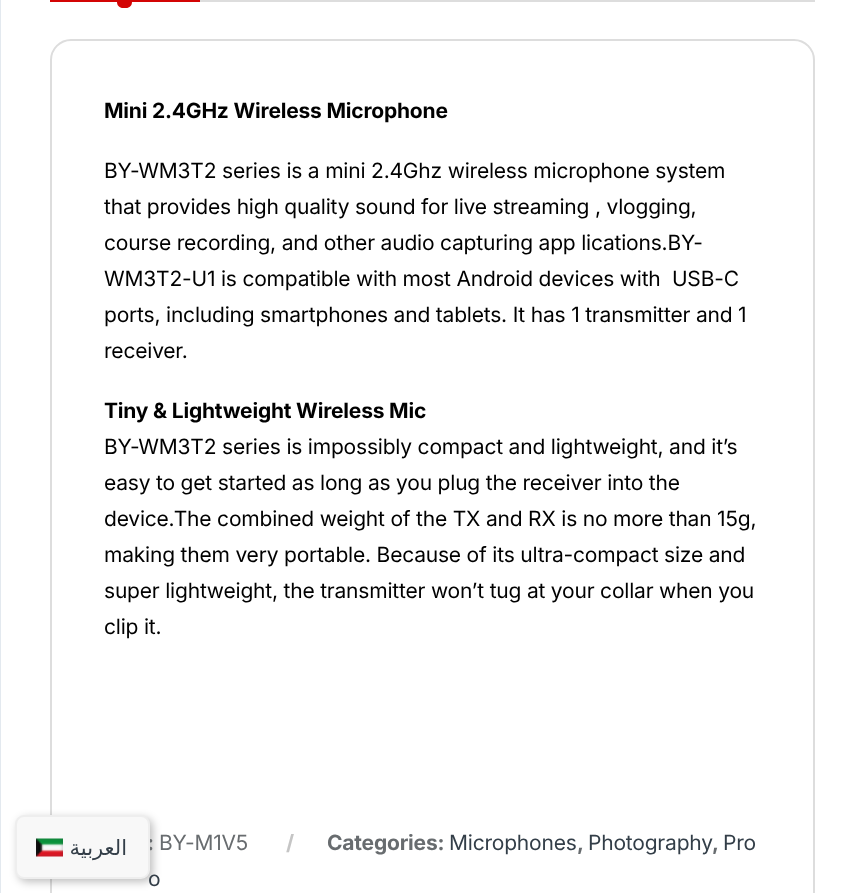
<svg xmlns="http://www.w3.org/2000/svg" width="864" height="893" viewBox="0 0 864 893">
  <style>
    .t1 { font: bold 21px Inter; letter-spacing: -0.2px; fill: #686c6f; }
    .t2 { font: 21px Inter; letter-spacing: -0.2px; fill: #333e48; }
    .t3 { font: 21px DejaVu Sans; letter-spacing: -0.2px; direction: rtl; fill: #333e48; }
    .t4 { font: bold 21px Inter; letter-spacing: -0.2px; fill: #000; }
    .t5 { font: 21px Inter; letter-spacing: -0.2px; fill: #000; }
    .t6 { font: 21px Inter; letter-spacing: -0.2px; fill: #686c6f; }
    .t7 { font: bold 21px Inter; letter-spacing: -0.2px; fill: #c5c5c5; }
  </style>
  <rect width="100%" height="100%" fill="#fff"/>
  <rect x="51" y="40" width="763" height="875" rx="20" fill="none" stroke="#ddd" stroke-width="2"/>
  <rect x="18" y="818" width="135" height="64" rx="9" fill="#00000040" filter="blur(4px)"/>
  <text x="147" y="850" class="t1">:</text>
  <text x="148" y="886" class="t2">o</text>
  <rect x="16" y="816" width="133" height="62" rx="8" fill="#f8f8f8" stroke="#eee" stroke-width="2"/>
  <image x="36" y="838" width="27" height="19" href="images/1.png"/>
  <text x="127" y="855" class="t3">العربية</text>
  <rect x="0" y="0" width="1" height="893" fill="#e3e9ef"/>
  <rect x="50" y="0" width="150" height="2" fill="#d30404"/>
  <path d="M117 2H132C132 5.5 129.5 8 126 8H123C119.5 8 117 5.5 117 2Z" fill="#d30404"/>
  <rect x="200" y="0" width="615" height="2" fill="#ddd"/>
  <text x="104" y="118" class="t4">Mini 2.4GHz Wireless Microphone</text>
  <text x="104" y="178" class="t5">BY-WM3T2 series is a mini 2.4Ghz wireless microphone system</text>
  <text x="104" y="214" class="t5">that provides high quality sound for live streaming , vlogging,</text>
  <text x="104" y="250" class="t5">course recording, and other audio capturing app lications.BY-</text>
  <text x="104" y="286" class="t5" xml:space="preserve">WM3T2-U1 is compatible with most Android devices with  USB-C</text>
  <text x="104" y="322" class="t5">ports, including smartphones and tablets. It has 1 transmitter and 1</text>
  <text x="104" y="358" class="t5">receiver.</text>
  <text x="104" y="418" class="t4">Tiny &amp; Lightweight Wireless Mic</text>
  <text x="104" y="454" class="t5">BY-WM3T2 series is impossibly compact and lightweight, and it’s</text>
  <text x="104" y="490" class="t5">easy to get started as long as you plug the receiver into the</text>
  <text x="104" y="526" class="t5">device.The combined weight of the TX and RX is no more than 15g,</text>
  <text x="104" y="562" class="t5">making them very portable. Because of its ultra-compact size and</text>
  <text x="104" y="598" class="t5">super lightweight, the transmitter won’t tug at your collar when you</text>
  <text x="104" y="634" class="t5">clip it.</text>
  <text x="159" y="850" class="t6">BY-M1V5</text>
  <text x="286" y="850" class="t7">/</text>
  <text x="327" y="850" class="t1">Categories:</text>
  <text x="449" y="850" class="t2">Microphones</text>
  <text x="577" y="850" class="t1">,</text>
  <text x="588" y="850" class="t2">Photography</text>
  <text x="712" y="850" class="t1">,</text>
  <text x="723" y="850" class="t2">Pro</text>
</svg>
